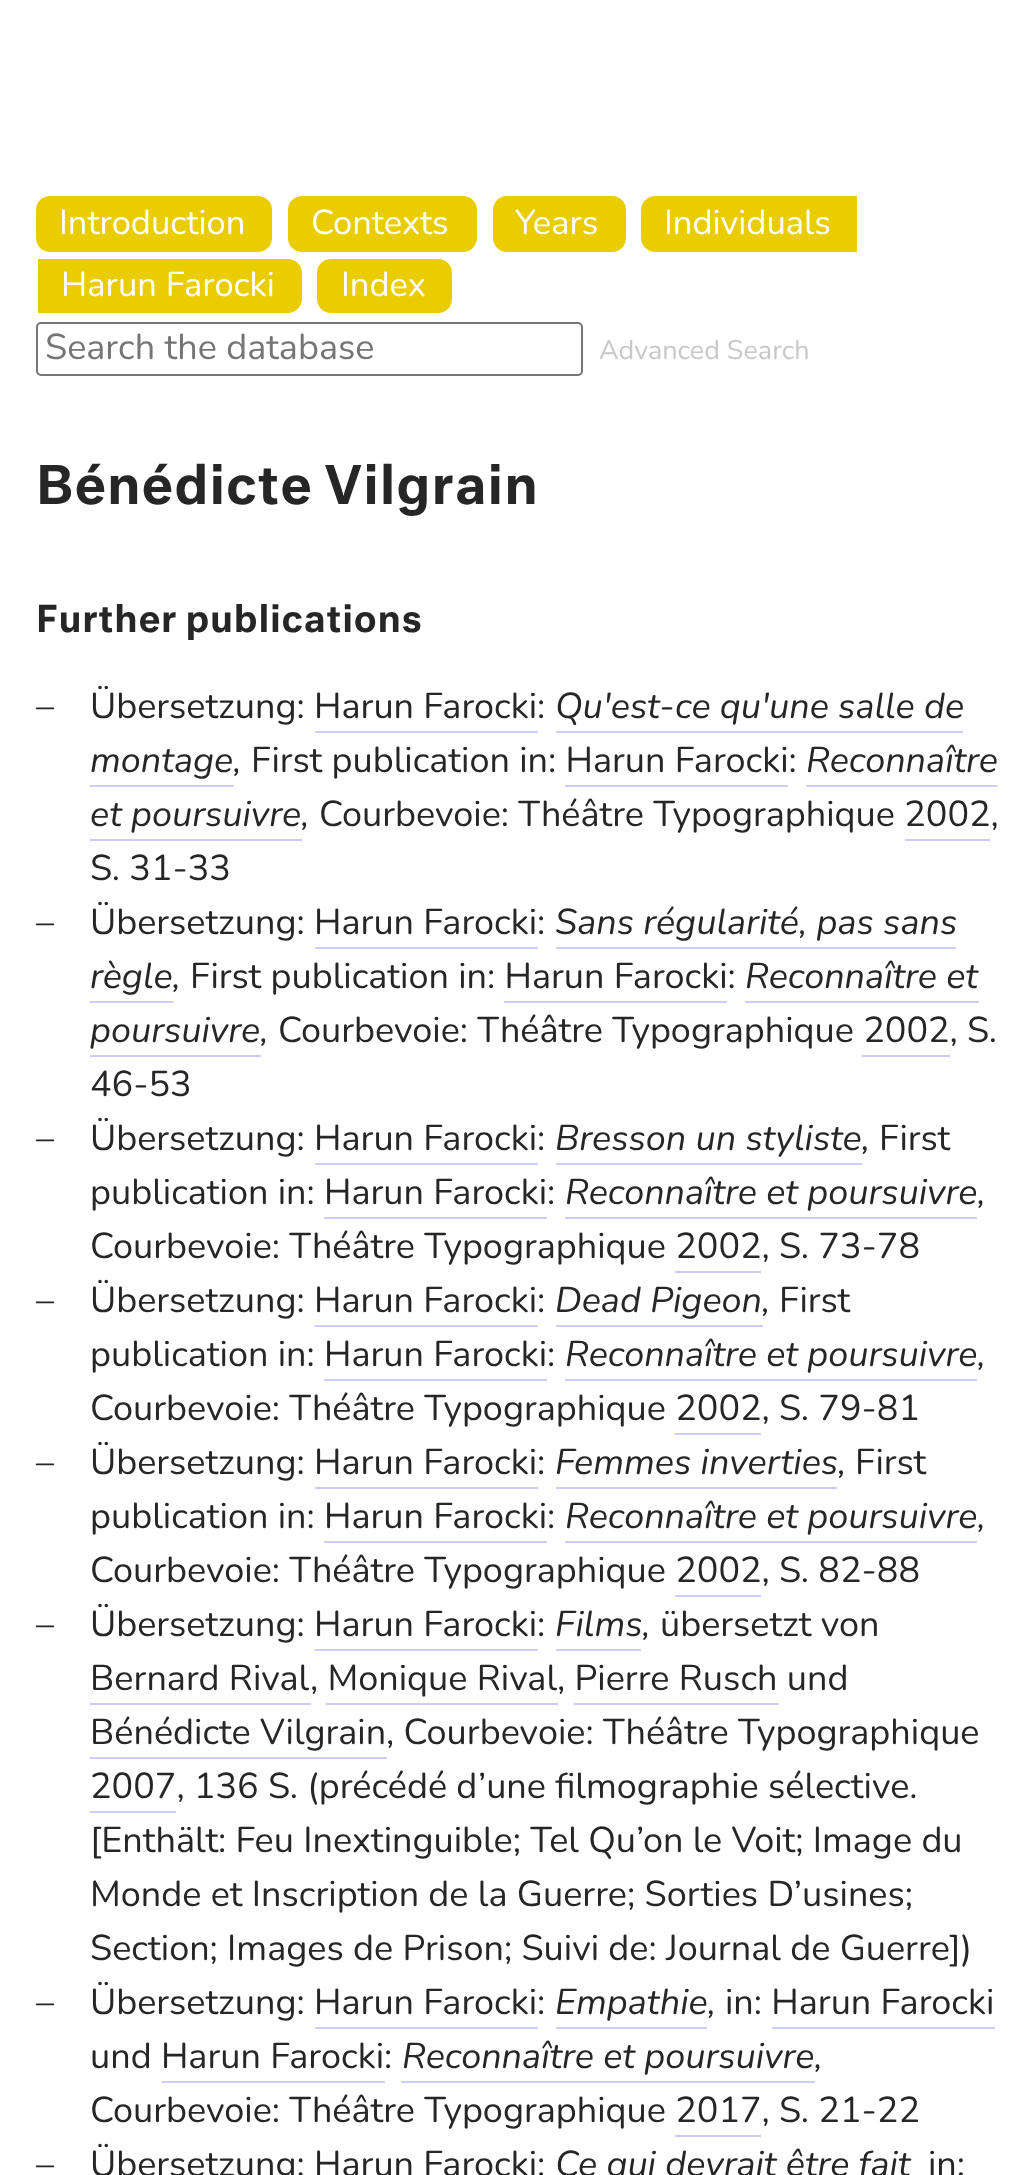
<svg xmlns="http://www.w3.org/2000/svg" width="1033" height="2175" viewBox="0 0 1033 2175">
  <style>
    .t1 { font: 34.5px Nunito; fill: #fff; }
    .t2 { font: 36px Nunito; fill: #757575; }
    .t3 { font: 27px Nunito; fill: #c8c8c8; }
    .t4 { font: 500 51.75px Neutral; letter-spacing: 1px; fill: #262626; }
    .t5 { font: 500 36px Neutral; letter-spacing: 0.75px; fill: #262626; }
    .t6 { font: 36px Nunito; fill: #262626; }
    .t7 { font: italic 36px Nunito; fill: #262626; }
  </style>
  <rect width="100%" height="100%" fill="#fff"/>
  <rect x="36" y="196" width="236" height="56" rx="14" fill="#e9cd00"/>
  <text x="59" y="234" class="t1">Introduction</text>
  <rect x="288" y="196" width="189" height="56" rx="14" fill="#e9cd00"/>
  <text x="311" y="234" class="t1">Contexts</text>
  <rect x="493" y="196" width="133" height="56" rx="14" fill="#e9cd00"/>
  <text x="515" y="234" class="t1">Years</text>
  <path d="M655 196H857V252H655C647.5 252 641 245.5 641 238V210C641 202.5 647.5 196 655 196Z" fill="#e9cd00"/>
  <text x="664" y="234" class="t1">Individuals</text>
  <path d="M38 259H288C295.5 259 302 265.5 302 273V299C302 306.5 295.5 313 288 313H38Z" fill="#e9cd00"/>
  <text x="61" y="296" class="t1">Harun Farocki</text>
  <rect x="317" y="259" width="135" height="54" rx="14" fill="#e9cd00"/>
  <text x="341" y="296" class="t1">Index</text>
  <rect x="37" y="323" width="545" height="52" rx="4" fill="none" stroke="#767676" stroke-width="2"/>
  <text x="45" y="359" class="t2">Search the database</text>
  <text x="599" y="359" class="t3">Advanced Search</text>
  <text x="36" y="504" class="t4">Bénédicte Vilgrain</text>
  <text x="36" y="632" class="t5">Further publications</text>
  <text x="36" y="718" class="t6">–</text>
  <text x="90" y="718" class="t6">Übersetzung: Harun Farocki:</text>
  <text x="555" y="718" class="t7">Qu'est-ce qu'une salle de</text>
  <rect x="556" y="731" width="407" height="2" fill="#ccf"/>
  <rect x="315" y="731" width="223" height="2" fill="#ccf"/>
  <text x="90" y="772" class="t7">montage,</text>
  <rect x="90" y="785" width="144" height="2" fill="#ccf"/>
  <text x="251" y="772" class="t6">First publication in: Harun Farocki:</text>
  <text x="806" y="772" class="t7">Reconnaître</text>
  <rect x="806" y="785" width="191" height="2" fill="#ccf"/>
  <rect x="565" y="785" width="223" height="2" fill="#ccf"/>
  <text x="90" y="826" class="t7">et poursuivre,</text>
  <rect x="90" y="839" width="212" height="2" fill="#ccf"/>
  <text x="319" y="826" class="t6">Courbevoie: Théâtre Typographique 2002,</text>
  <rect x="905" y="839" width="85" height="2" fill="#ccf"/>
  <text x="90" y="880" class="t6">S. 31-33</text>
  <text x="36" y="934" class="t6">–</text>
  <text x="90" y="934" class="t6">Übersetzung: Harun Farocki:</text>
  <text x="555" y="934" class="t7">Sans régularité, pas sans</text>
  <rect x="556" y="947" width="400" height="2" fill="#ccf"/>
  <rect x="315" y="947" width="223" height="2" fill="#ccf"/>
  <text x="90" y="988" class="t7">règle,</text>
  <rect x="90" y="1001" width="83" height="2" fill="#ccf"/>
  <text x="190" y="988" class="t6">First publication in: Harun Farocki:</text>
  <text x="745" y="988" class="t7">Reconnaître et</text>
  <rect x="745" y="1001" width="234" height="2" fill="#ccf"/>
  <rect x="504" y="1001" width="223" height="2" fill="#ccf"/>
  <text x="90" y="1042" class="t7">poursuivre,</text>
  <rect x="90" y="1055" width="171" height="2" fill="#ccf"/>
  <text x="278" y="1042" class="t6">Courbevoie: Théâtre Typographique 2002, S.</text>
  <rect x="862" y="1055" width="88" height="2" fill="#ccf"/>
  <text x="90" y="1096" class="t6">46-53</text>
  <text x="36" y="1150" class="t6">–</text>
  <text x="90" y="1150" class="t6">Übersetzung: Harun Farocki:</text>
  <text x="555" y="1150" class="t7">Bresson un styliste,</text>
  <rect x="556" y="1163" width="306" height="2" fill="#ccf"/>
  <text x="879" y="1150" class="t6">First</text>
  <rect x="315" y="1163" width="223" height="2" fill="#ccf"/>
  <text x="90" y="1204" class="t6">publication in: Harun Farocki:</text>
  <text x="565" y="1204" class="t7">Reconnaître et poursuivre,</text>
  <rect x="565" y="1217" width="412" height="2" fill="#ccf"/>
  <rect x="324" y="1217" width="223" height="2" fill="#ccf"/>
  <text x="90" y="1258" class="t6">Courbevoie: Théâtre Typographique 2002, S. 73-78</text>
  <rect x="675" y="1271" width="86" height="2" fill="#ccf"/>
  <text x="36" y="1312" class="t6">–</text>
  <text x="90" y="1312" class="t6">Übersetzung: Harun Farocki:</text>
  <text x="555" y="1312" class="t7">Dead Pigeon,</text>
  <rect x="556" y="1325" width="207" height="2" fill="#ccf"/>
  <text x="779" y="1312" class="t6">First</text>
  <rect x="315" y="1325" width="223" height="2" fill="#ccf"/>
  <text x="90" y="1366" class="t6">publication in: Harun Farocki:</text>
  <text x="565" y="1366" class="t7">Reconnaître et poursuivre,</text>
  <rect x="565" y="1379" width="412" height="2" fill="#ccf"/>
  <rect x="324" y="1379" width="223" height="2" fill="#ccf"/>
  <text x="90" y="1420" class="t6">Courbevoie: Théâtre Typographique 2002, S. 79-81</text>
  <rect x="675" y="1433" width="86" height="2" fill="#ccf"/>
  <text x="36" y="1474" class="t6">–</text>
  <text x="90" y="1474" class="t6">Übersetzung: Harun Farocki:</text>
  <text x="555" y="1474" class="t7">Femmes inverties,</text>
  <rect x="556" y="1487" width="281" height="2" fill="#ccf"/>
  <text x="855" y="1474" class="t6">First</text>
  <rect x="315" y="1487" width="223" height="2" fill="#ccf"/>
  <text x="90" y="1528" class="t6">publication in: Harun Farocki:</text>
  <text x="565" y="1528" class="t7">Reconnaître et poursuivre,</text>
  <rect x="565" y="1541" width="412" height="2" fill="#ccf"/>
  <rect x="324" y="1541" width="223" height="2" fill="#ccf"/>
  <text x="90" y="1582" class="t6">Courbevoie: Théâtre Typographique 2002, S. 82-88</text>
  <rect x="675" y="1595" width="86" height="2" fill="#ccf"/>
  <text x="36" y="1636" class="t6">–</text>
  <text x="90" y="1636" class="t6">Übersetzung: Harun Farocki:</text>
  <text x="555" y="1636" class="t7">Films,</text>
  <rect x="556" y="1649" width="85" height="2" fill="#ccf"/>
  <text x="660" y="1636" class="t6">übersetzt von</text>
  <rect x="315" y="1649" width="223" height="2" fill="#ccf"/>
  <text x="90" y="1690" class="t6">Bernard Rival</text>
  <rect x="90" y="1703" width="221" height="2" fill="#ccf"/>
  <text x="310" y="1690" class="t6">, Monique Rival</text>
  <text x="557" y="1690" class="t6">, Pierre Rusch und</text>
  <rect x="326" y="1703" width="232" height="2" fill="#ccf"/>
  <rect x="574" y="1703" width="205" height="2" fill="#ccf"/>
  <text x="90" y="1744" class="t6">Bénédicte Vilgrain, Courbevoie: Théâtre Typographique</text>
  <rect x="90" y="1757" width="297" height="2" fill="#ccf"/>
  <text x="90" y="1798" class="t6">2007, 136 S. (précédé d’une filmographie sélective.</text>
  <rect x="90" y="1811" width="86" height="2" fill="#ccf"/>
  <text x="90" y="1852" class="t6">[Enthält: Feu Inextinguible; Tel Qu’on le Voit; Image du</text>
  <text x="90" y="1906" class="t6">Monde et Inscription de la Guerre; Sorties D’usines;</text>
  <text x="90" y="1960" class="t6">Section; Images de Prison; Suivi de: Journal de Guerre])</text>
  <text x="36" y="2014" class="t6">–</text>
  <text x="90" y="2014" class="t6">Übersetzung: Harun Farocki:</text>
  <text x="555" y="2014" class="t7">Empathie,</text>
  <rect x="556" y="2027" width="151" height="2" fill="#ccf"/>
  <text x="725" y="2014" class="t6">in: Harun Farocki</text>
  <rect x="315" y="2027" width="223" height="2" fill="#ccf"/>
  <rect x="772" y="2027" width="223" height="2" fill="#ccf"/>
  <text x="90" y="2068" class="t6">und Harun Farocki:</text>
  <text x="402" y="2068" class="t7">Reconnaître et poursuivre,</text>
  <rect x="401" y="2081" width="414" height="2" fill="#ccf"/>
  <rect x="162" y="2081" width="223" height="2" fill="#ccf"/>
  <text x="90" y="2122" class="t6">Courbevoie: Théâtre Typographique 2017, S. 21-22</text>
  <rect x="675" y="2135" width="86" height="2" fill="#ccf"/>
  <text x="36" y="2176" class="t6">–</text>
  <text x="90" y="2176" class="t6">Übersetzung: Harun Farocki:</text>
  <text x="555" y="2176" class="t7">Ce qui devrait être fait</text>
  <text x="928" y="2176" class="t6">in:</text>
</svg>
